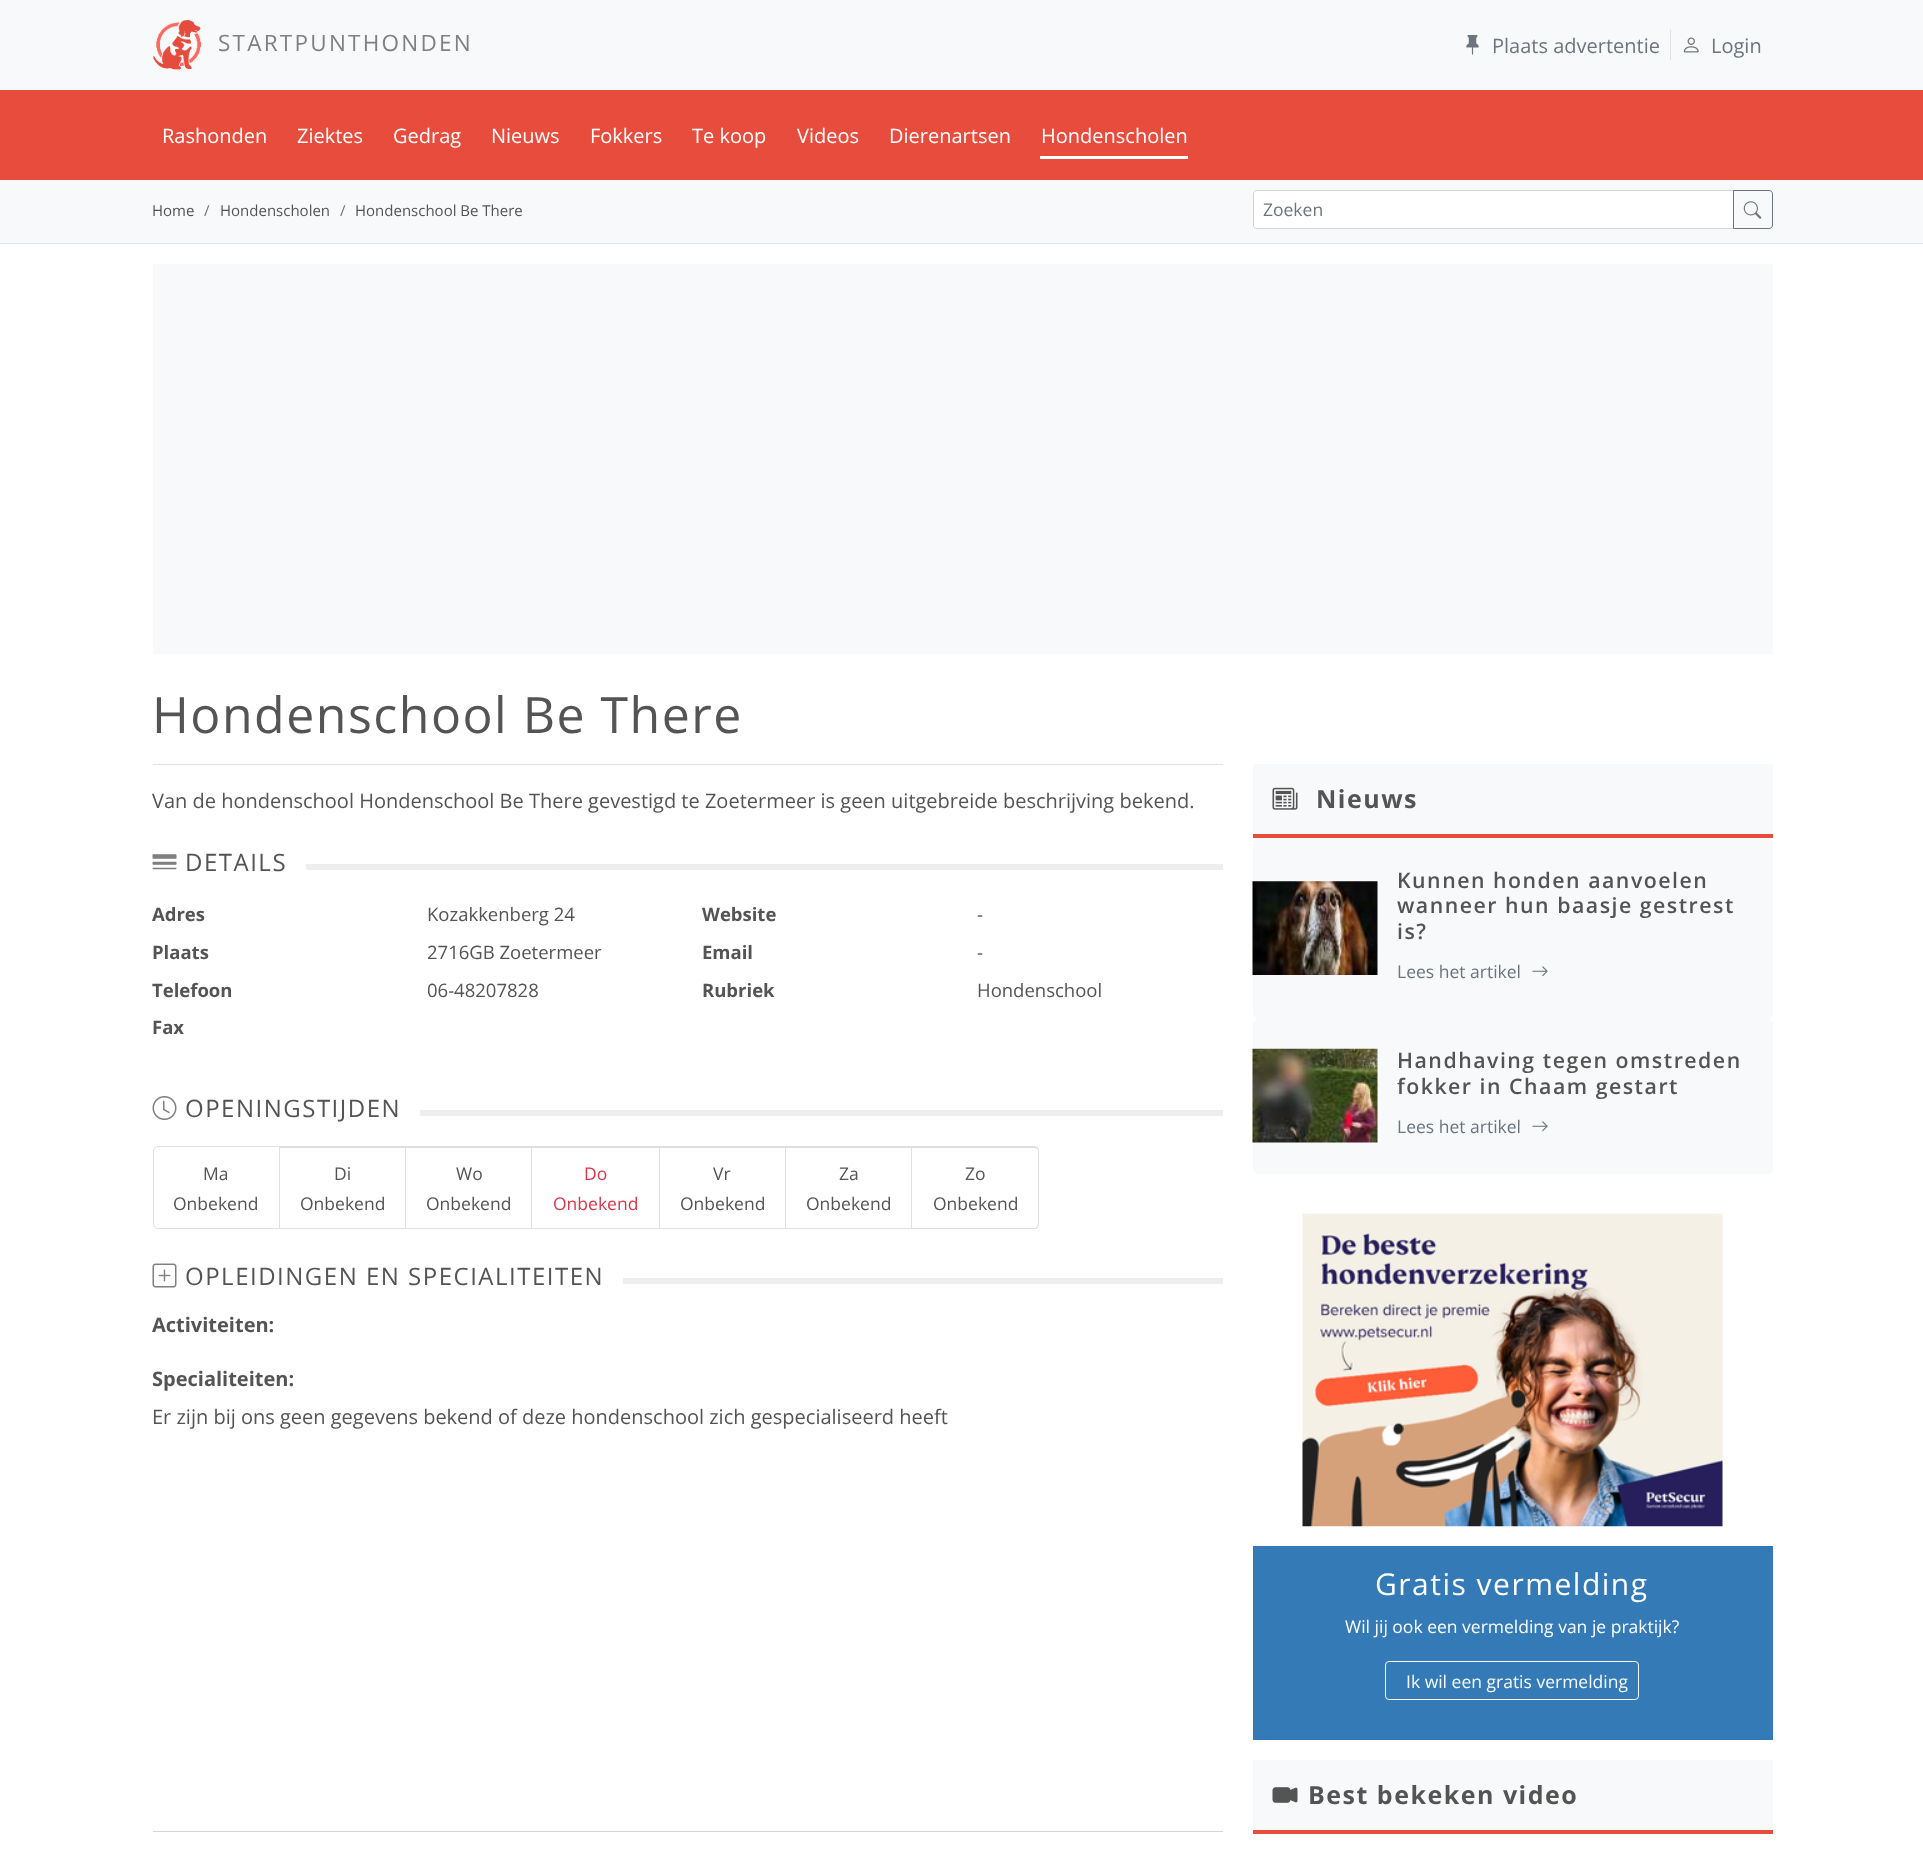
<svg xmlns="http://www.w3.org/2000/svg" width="1923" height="1851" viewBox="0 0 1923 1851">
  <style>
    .t1 { font: 22.5px Open Sans; letter-spacing: 2.25px; fill: #808080; }
    .t2 { font: 20px Open Sans; fill: #6c757d; }
    .t3 { font: 20px Open Sans; fill: #fff; }
    .t4 { font: 15px Open Sans; fill: #545454; }
    .t5 { font: 15px Open Sans; fill: #6c757d; }
    .t6 { font: 17.5px Open Sans; fill: #6c757d; }
    .t7 { font: 50px Open Sans; letter-spacing: 1.5px; fill: #545454; }
    .t8 { font: 20px Open Sans; fill: #545454; }
    .t9 { font: 24px Open Sans; letter-spacing: 1.5px; fill: #545454; }
    .t10 { font: bold 18.5px Open Sans; fill: #545454; }
    .t11 { font: 18.5px Open Sans; fill: #545454; }
    .t12 { font: 17.5px Open Sans; fill: #545454; }
    .t13 { font: 17.5px Open Sans; fill: #dc3545; }
    .t14 { font: bold 20px Open Sans; fill: #545454; }
    .t15 { font: bold 25px Open Sans; letter-spacing: 1.5px; fill: #545454; }
    .t16 { font: 600 21.3px Open Sans; letter-spacing: 1.5px; fill: #545454; }
    .t17 { font: 30px Open Sans; letter-spacing: 1.5px; fill: #fff; }
    .t18 { font: 17.5px Open Sans; fill: #fff; }
    .t19 { font: 17.5px Open Sans; fill: #f8f9fa; }
  </style>
  <rect width="100%" height="100%" fill="#fff"/>
  <rect x="0" y="0" width="1923" height="90" fill="#f8f9fa"/>
  <image x="153" y="20" width="48" height="50" href="images/1.png"/>
  <text x="218" y="51" class="t1">STARTPUNTHONDEN</text>
  <rect x="1670" y="30" width="1" height="30" fill="#dee2e6"/>
  <image x="1466" y="35" width="13" height="20" href="images/2.png"/>
  <text x="1492" y="53" class="t2">Plaats advertentie</text>
  <image x="1683" y="37" width="16" height="16" href="images/3.png"/>
  <text x="1711" y="53" class="t2">Login</text>
  <rect x="0" y="90" width="1923" height="90" fill="#e84c3d"/>
  <text x="162" y="143" class="t3">Rashonden</text>
  <text x="297" y="143" class="t3">Ziektes</text>
  <text x="393" y="143" class="t3">Gedrag</text>
  <text x="491" y="143" class="t3">Nieuws</text>
  <text x="590" y="143" class="t3">Fokkers</text>
  <text x="692" y="143" class="t3">Te koop</text>
  <text x="797" y="143" class="t3">Videos</text>
  <text x="889" y="143" class="t3">Dierenartsen</text>
  <text x="1041" y="143" class="t3">Hondenscholen</text>
  <rect x="1040" y="156" width="148" height="3" fill="#fff"/>
  <rect x="0" y="180" width="1923" height="63" fill="#f8f9fa"/>
  <rect x="0" y="243" width="1923" height="1" fill="#dee2e6"/>
  <text x="152" y="216" class="t4">Home</text>
  <text x="204" y="216" class="t5">/</text>
  <text x="220" y="216" class="t4">Hondenscholen</text>
  <text x="340" y="216" class="t5">/</text>
  <text x="355" y="216" class="t4">Hondenschool Be There</text>
  <path d="M1256.5 191H1733V228H1256.5C1255 228 1254 227 1254 225.5V193.5C1254 192 1255 191 1256.5 191Z" fill="#fff"/>
  <path d="M1257 190.5H1733.5V228.5H1257C1255 228.5 1253.5 227 1253.5 225V194C1253.5 192 1255 190.5 1257 190.5Z" fill="none" stroke="#ced4da"/>
  <text x="1263" y="216" class="t6">Zoeken</text>
  <path d="M1733.5 190.5H1769C1771 190.5 1772.5 192 1772.5 194V225C1772.5 227 1771 228.5 1769 228.5H1733.5Z" fill="none" stroke="#6c757d"/>
  <image x="1743" y="201" width="19" height="18" href="images/4.png"/>
  <rect x="153" y="264" width="1620" height="390" fill="#f8f9fa"/>
  <text x="152" y="733" class="t7">Hondenschool Be There</text>
  <rect x="153" y="764" width="1070" height="1" fill="#dee2e6"/>
  <text x="152" y="808" class="t8">Van de hondenschool Hondenschool Be There gevestigd te Zoetermeer is geen uitgebreide beschrijving bekend.</text>
  <rect x="306" y="864" width="917" height="6" fill="#eee"/>
  <image x="152" y="854" width="25" height="16" href="images/5.png"/>
  <text x="185" y="871" class="t9">DETAILS</text>
  <text x="152" y="921" class="t10">Adres</text>
  <text x="427" y="921" class="t11">Kozakkenberg 24</text>
  <text x="152" y="959" class="t10">Plaats</text>
  <text x="427" y="959" class="t11">2716GB Zoetermeer</text>
  <text x="152" y="997" class="t10">Telefoon</text>
  <text x="427" y="997" class="t11">06-48207828</text>
  <text x="152" y="1034" class="t10">Fax</text>
  <text x="702" y="921" class="t10">Website</text>
  <text x="977" y="921" class="t11">-</text>
  <text x="702" y="959" class="t10">Email</text>
  <text x="977" y="959" class="t11">-</text>
  <text x="702" y="997" class="t10">Rubriek</text>
  <text x="977" y="997" class="t11">Hondenschool</text>
  <rect x="420" y="1110" width="803" height="6" fill="#eee"/>
  <image x="152" y="1096" width="25" height="24" href="images/6.png"/>
  <text x="185" y="1117" class="t9">OPENINGSTIJDEN</text>
  <path d="M158 1146.5H279.5V1228.5H158C155.5 1228.5 153.5 1226.5 153.5 1224V1151C153.5 1148.5 155.5 1146.5 158 1146.5Z" fill="none" stroke="#dfdfdf"/>
  <text x="203" y="1180" class="t12">Ma</text>
  <text x="173" y="1210" class="t12">Onbekend</text>
  <path d="M280 1146H406L405 1148H280Z" fill="#dfdfdf"/>
  <path d="M406 1146V1229L405 1228V1148Z" fill="#0000001f"/>
  <path d="M406 1229H280V1228H405Z" fill="#0000001f"/>
  <text x="334" y="1180" class="t12">Di</text>
  <text x="300" y="1210" class="t12">Onbekend</text>
  <path d="M406 1146H532L531 1148H406Z" fill="#dfdfdf"/>
  <path d="M532 1146V1229L531 1228V1148Z" fill="#0000001f"/>
  <path d="M532 1229H406V1228H531Z" fill="#0000001f"/>
  <text x="456" y="1180" class="t12">Wo</text>
  <text x="426" y="1210" class="t12">Onbekend</text>
  <path d="M532 1146H660L659 1148H532Z" fill="#dfdfdf"/>
  <path d="M660 1146V1229L659 1228V1148Z" fill="#0000001f"/>
  <path d="M660 1229H532V1228H659Z" fill="#0000001f"/>
  <text x="584" y="1180" class="t13">Do</text>
  <text x="553" y="1210" class="t13">Onbekend</text>
  <path d="M660 1146H786L785 1148H660Z" fill="#dfdfdf"/>
  <path d="M786 1146V1229L785 1228V1148Z" fill="#0000001f"/>
  <path d="M786 1229H660V1228H785Z" fill="#0000001f"/>
  <text x="713" y="1180" class="t12">Vr</text>
  <text x="680" y="1210" class="t12">Onbekend</text>
  <path d="M786 1146H912L911 1148H786Z" fill="#dfdfdf"/>
  <path d="M912 1146V1229L911 1228V1148Z" fill="#0000001f"/>
  <path d="M912 1229H786V1228H911Z" fill="#0000001f"/>
  <text x="839" y="1180" class="t12">Za</text>
  <text x="806" y="1210" class="t12">Onbekend</text>
  <path d="M912 1146H1034C1037 1146 1039 1148 1039 1151V1224C1039 1227 1037 1229 1034 1229H912ZM912 1148H1034C1036 1148 1038 1149 1038 1151V1224C1038 1226 1036 1228 1034 1228H912Z" fill="#dfdfdf" fill-rule="evenodd"/>
  <text x="965" y="1180" class="t12">Zo</text>
  <text x="933" y="1210" class="t12">Onbekend</text>
  <rect x="623" y="1278" width="600" height="6" fill="#eee"/>
  <image x="152" y="1263" width="25" height="25" href="images/7.png"/>
  <text x="185" y="1285" class="t9">OPLEIDINGEN EN SPECIALITEITEN</text>
  <text x="152" y="1332" class="t14">Activiteiten:</text>
  <text x="152" y="1386" class="t14">Specialiteiten:</text>
  <text x="152" y="1424" class="t8">Er zijn bij ons geen gegevens bekend of deze hondenschool zich gespecialiseerd heeft</text>
  <rect x="153" y="1831" width="1070" height="1" fill="#d4d4d4"/>
  <rect x="1253" y="764" width="520" height="70" fill="#f8f9fa"/>
  <rect x="1253" y="834" width="520" height="4" fill="#e84c3d"/>
  <image x="1272" y="787" width="26" height="23" href="images/8.png"/>
  <text x="1316" y="808" class="t15">Nieuws</text>
  <rect x="1253" y="838" width="520" height="181" rx="5" fill="#f8f9fa"/>
  <image x="1252" y="881" width="126" height="94" href="images/9.png"/>
  <text x="1397" y="888" class="t16">Kunnen honden aanvoelen</text>
  <text x="1397" y="913" class="t16">wanneer hun baasje gestrest</text>
  <text x="1397" y="939" class="t16">is?</text>
  <text x="1397" y="978" class="t6">Lees het artikel</text>
  <image x="1532" y="966" width="16" height="11" href="images/10.png"/>
  <rect x="1253" y="1019" width="520" height="155" rx="5" fill="#f8f9fa"/>
  <image x="1252" y="1048" width="126" height="95" href="images/11.png"/>
  <text x="1397" y="1068" class="t16">Handhaving tegen omstreden</text>
  <text x="1397" y="1094" class="t16">fokker in Chaam gestart</text>
  <text x="1397" y="1133" class="t6">Lees het artikel</text>
  <image x="1532" y="1121" width="16" height="11" href="images/10.png"/>
  <image x="1302" y="1213" width="421" height="314" href="images/12.png"/>
  <rect x="1253" y="1546" width="520" height="194" fill="#337ab7"/>
  <text x="1375" y="1595" class="t17">Gratis vermelding</text>
  <text x="1345" y="1633" class="t18">Wil jij ook een vermelding van je praktijk?</text>
  <rect x="1385.5" y="1661.5" width="253" height="38" rx="3.5" fill="none" stroke="#f8f9fa"/>
  <text x="1406" y="1688" class="t19">Ik wil een gratis vermelding</text>
  <rect x="1253" y="1760" width="520" height="70" fill="#f8f9fa"/>
  <rect x="1253" y="1830" width="520" height="4" fill="#e84c3d"/>
  <image x="1272" y="1787" width="26" height="16" href="images/13.png"/>
  <text x="1308" y="1804" class="t15">Best bekeken video</text>
</svg>
